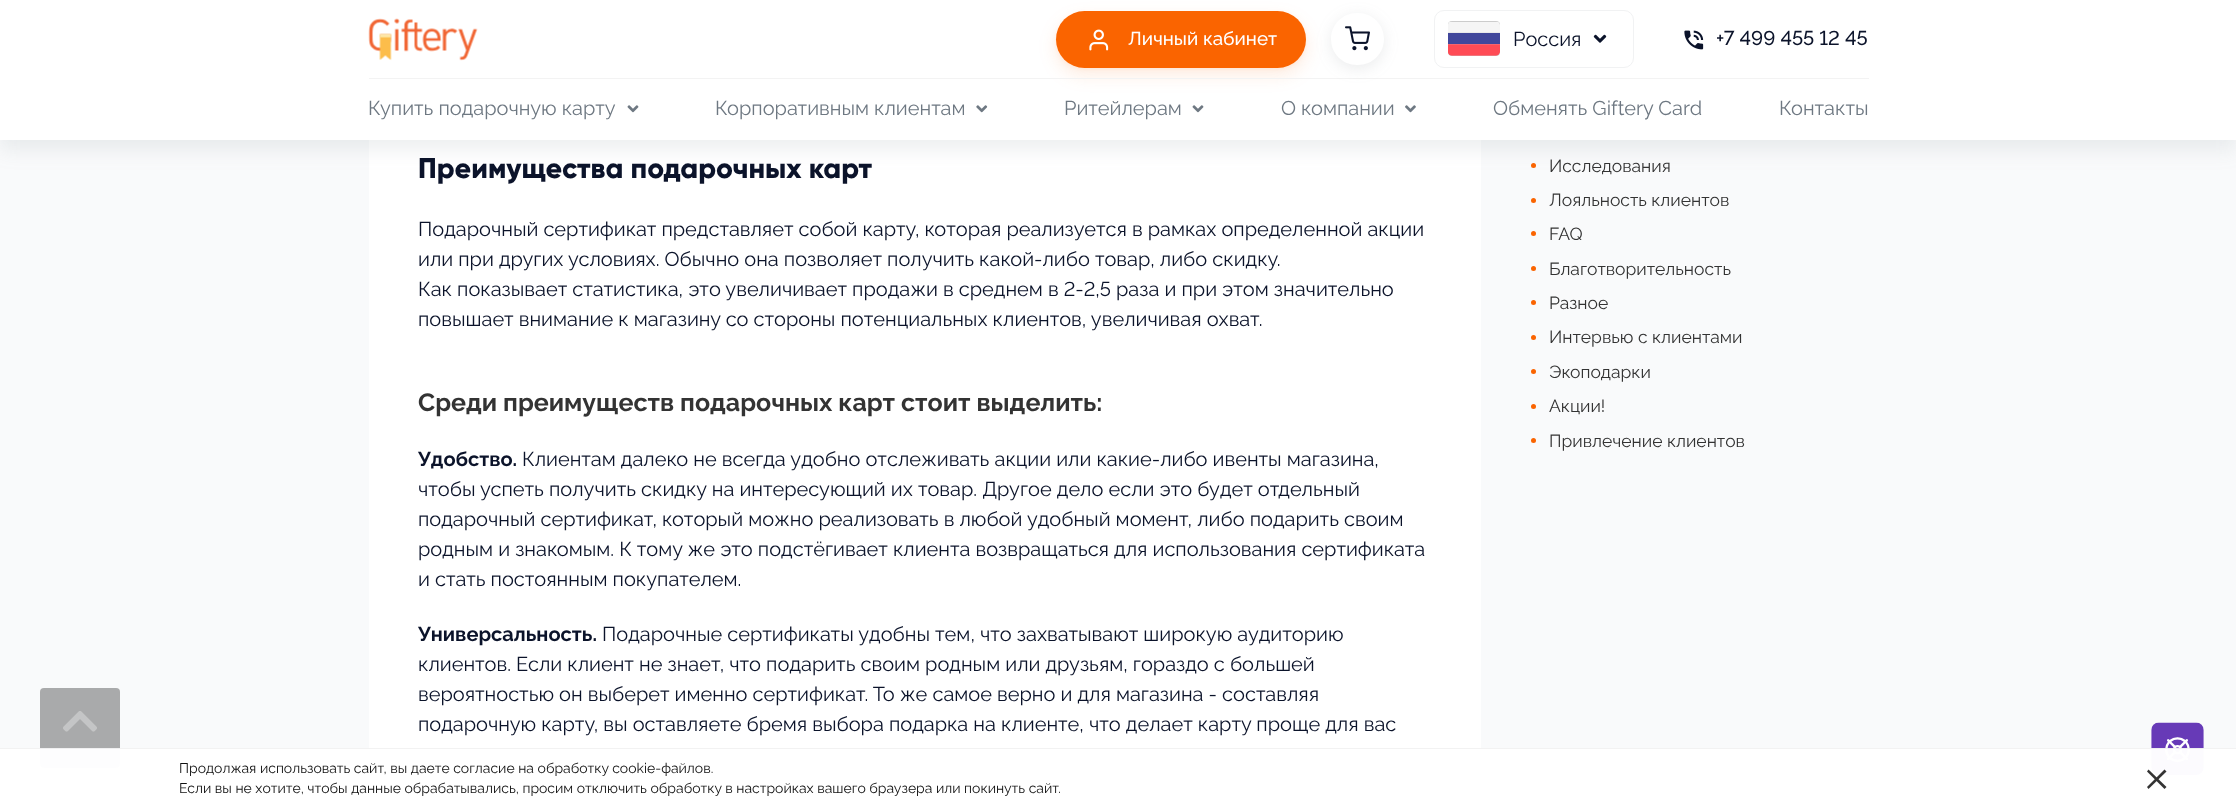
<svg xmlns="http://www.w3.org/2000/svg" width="2236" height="807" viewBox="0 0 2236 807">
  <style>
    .t1 { font: 500 18.75px Raleway; fill: #fff; }
    .t2 { font: 20px Raleway; fill: #0b132a; }
    .t3 { font: 500 20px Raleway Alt; fill: #0b132a; }
    .t4 { font: 20px Raleway; fill: #6e7882; }
    .t5 { font: 800 28.75px Gilroy; fill: #0b132a; }
    .t6 { font: 20px Raleway Alt; fill: #0b132a; }
    .t7 { font: bold 25px Raleway; fill: #333; }
    .t8 { font: bold 20px Raleway; fill: #0b132a; }
    .t9 { font: 17.5px Raleway; fill: #333; }
    .t10 { font: 14px Raleway; fill: #111; }
  </style>
  <defs>
    <clipPath id="clip1"><path d="M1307 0H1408V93H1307ZM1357 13H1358C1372.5 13 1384 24.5 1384 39C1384 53.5 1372.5 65 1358 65H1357C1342.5 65 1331 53.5 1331 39C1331 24.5 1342.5 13 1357 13Z" clip-rule="evenodd"/></clipPath>
  </defs>
  <rect width="100%" height="100%" fill="#f9fafb"/>
  <rect x="369" y="140" width="1112" height="667" fill="#fff"/>
  <circle cx="1533.5" cy="165.5" r="2.5" fill="#fa6400"/>
  <rect x="0" y="10" width="2236" height="140" fill="#6e78811f" filter="blur(10px)"/>
  <rect x="0" y="0" width="2236" height="140" fill="#fff"/>
  <image x="368" y="18" width="110" height="43" href="images/1.png"/>
  <rect x="1056" y="19" width="250" height="56" rx="28" fill="#fa64001f" filter="blur(9px)"/>
  <rect x="1056" y="13" width="250" height="56" rx="28" fill="#fa640014" filter="blur(2px)"/>
  <rect x="1056" y="11" width="250" height="57" rx="28.5" fill="#fa6400"/>
  <image x="1089" y="29" width="20" height="22" href="images/2.png"/>
  <text x="1128" y="45" class="t1">Личный кабинет</text>
  <rect x="369" y="78" width="1500" height="1" fill="#f3f3f3"/>
  <g clip-path="url(#clip1)">
    <rect x="1331" y="16" width="53" height="53" rx="26.5" fill="#6e788124" filter="blur(7.5px)"/>
  </g>
  <image x="1345" y="26" width="25" height="25" href="images/3.png"/>
  <rect x="1434.5" y="10.5" width="199" height="57" rx="9.5" fill="none" stroke="#f1f2f3"/>
  <rect x="1448" y="21" width="52" height="35" rx="4" fill="#00000033" filter="blur(0.5px)"/>
  <image x="1448" y="22" width="52" height="34" href="images/4.png"/>
  <text x="1513" y="46" class="t2">Россия</text>
  <image x="1593" y="34" width="14" height="9" href="images/5.png"/>
  <image x="1684" y="30" width="20" height="20" href="images/6.png"/>
  <text x="1716" y="45" class="t3">+7 499 455 12 45</text>
  <text x="368" y="115" class="t4">Купить подарочную карту</text>
  <image x="627" y="105" width="12" height="8" href="images/7.png"/>
  <text x="715" y="115" class="t4">Корпоративным клиентам</text>
  <image x="976" y="105" width="12" height="8" href="images/8.png"/>
  <text x="1064" y="115" class="t4">Ритейлерам</text>
  <image x="1192" y="105" width="12" height="8" href="images/7.png"/>
  <text x="1281" y="115" class="t4">О компании</text>
  <image x="1405" y="105" width="11" height="8" href="images/9.png"/>
  <text x="1493" y="115" class="t4">Обменять Giftery Card</text>
  <text x="1779" y="115" class="t4">Контакты</text>
  <rect x="40" y="688" width="80" height="80" rx="4" fill="#a9aaab"/>
  <image x="63" y="711" width="34" height="21" href="images/10.png"/>
  <text x="418" y="178" class="t5">Преимущества подарочных карт</text>
  <text x="418" y="236" class="t2">Подарочный сертификат представляет собой карту, которая реализуется в рамках определенной акции</text>
  <text x="418" y="266" class="t2">или при других условиях. Обычно она позволяет получить какой-либо товар, либо скидку.</text>
  <text x="418" y="296" class="t6">Как показывает статистика, это увеличивает продажи в среднем в 2-2,5 раза и при этом значительно</text>
  <text x="418" y="326" class="t2">повышает внимание к магазину со стороны потенциальных клиентов, увеличивая охват.</text>
  <text x="418" y="411" class="t7">Среди преимуществ подарочных карт стоит выделить:</text>
  <text x="418" y="466" class="t8">Удобство.</text>
  <text x="522" y="466" class="t2">Клиентам далеко не всегда удобно отслеживать акции или какие-либо ивенты магазина,</text>
  <text x="418" y="496" class="t2">чтобы успеть получить скидку на интересующий их товар. Другое дело если это будет отдельный</text>
  <text x="418" y="526" class="t2">подарочный сертификат, который можно реализовать в любой удобный момент, либо подарить своим</text>
  <text x="418" y="556" class="t2">родным и знакомым. К тому же это подстёгивает клиента возвращаться для использования сертификата</text>
  <text x="418" y="586" class="t2">и стать постоянным покупателем.</text>
  <text x="418" y="641" class="t8">Универсальность.</text>
  <text x="602" y="641" class="t2">Подарочные сертификаты удобны тем, что захватывают широкую аудиторию</text>
  <text x="418" y="671" class="t2">клиентов. Если клиент не знает, что подарить своим родным или друзьям, гораздо с большей</text>
  <text x="418" y="701" class="t2">вероятностью он выберет именно сертификат. То же самое верно и для магазина - составляя</text>
  <text x="418" y="731" class="t2">подарочную карту, вы оставляете бремя выбора подарка на клиенте, что делает карту проще для вас</text>
  <text x="1549" y="172" class="t9">Исследования</text>
  <circle cx="1533.5" cy="200.5" r="2.5" fill="#fa6400"/>
  <text x="1549" y="206" class="t9">Лояльность клиентов</text>
  <circle cx="1533.5" cy="233.5" r="2.5" fill="#fa6400"/>
  <text x="1549" y="240" class="t9">FAQ</text>
  <circle cx="1533.5" cy="268.5" r="2.5" fill="#fa6400"/>
  <text x="1549" y="275" class="t9">Благотворительность</text>
  <circle cx="1533.5" cy="302.5" r="2.5" fill="#fa6400"/>
  <text x="1549" y="309" class="t9">Разное</text>
  <circle cx="1533.5" cy="337.5" r="2.5" fill="#fa6400"/>
  <text x="1549" y="343" class="t9">Интервью с клиентами</text>
  <circle cx="1533.5" cy="371.5" r="2.5" fill="#fa6400"/>
  <text x="1549" y="378" class="t9">Экоподарки</text>
  <circle cx="1533.5" cy="406.5" r="2.5" fill="#fa6400"/>
  <text x="1549" y="412" class="t9">Акции!</text>
  <circle cx="1533.5" cy="440.5" r="2.5" fill="#fa6400"/>
  <text x="1549" y="447" class="t9">Привлечение клиентов</text>
  <image x="2151" y="722" width="53" height="53" href="images/11.png"/>
  <rect x="0" y="748" width="2236" height="59" fill="#fffffffa"/>
  <rect x="0" y="748" width="2236" height="1" fill="#0000000d"/>
  <text x="179" y="773" class="t10">Продолжая использовать сайт, вы даете согласие на обработку cookie-файлов.</text>
  <text x="179" y="793" class="t10">Если вы не хотите, чтобы данные обрабатывались, просим отключить обработку в настройках вашего браузера или покинуть сайт.</text>
  <path d="M2148.5 769.5L2166.5 787L2164.5 789L2147 771.5Z" fill="#333"/>
  <path d="M2147 787L2164.5 769.5L2166.5 771.5L2148.5 789Z" fill="#333"/>
</svg>
